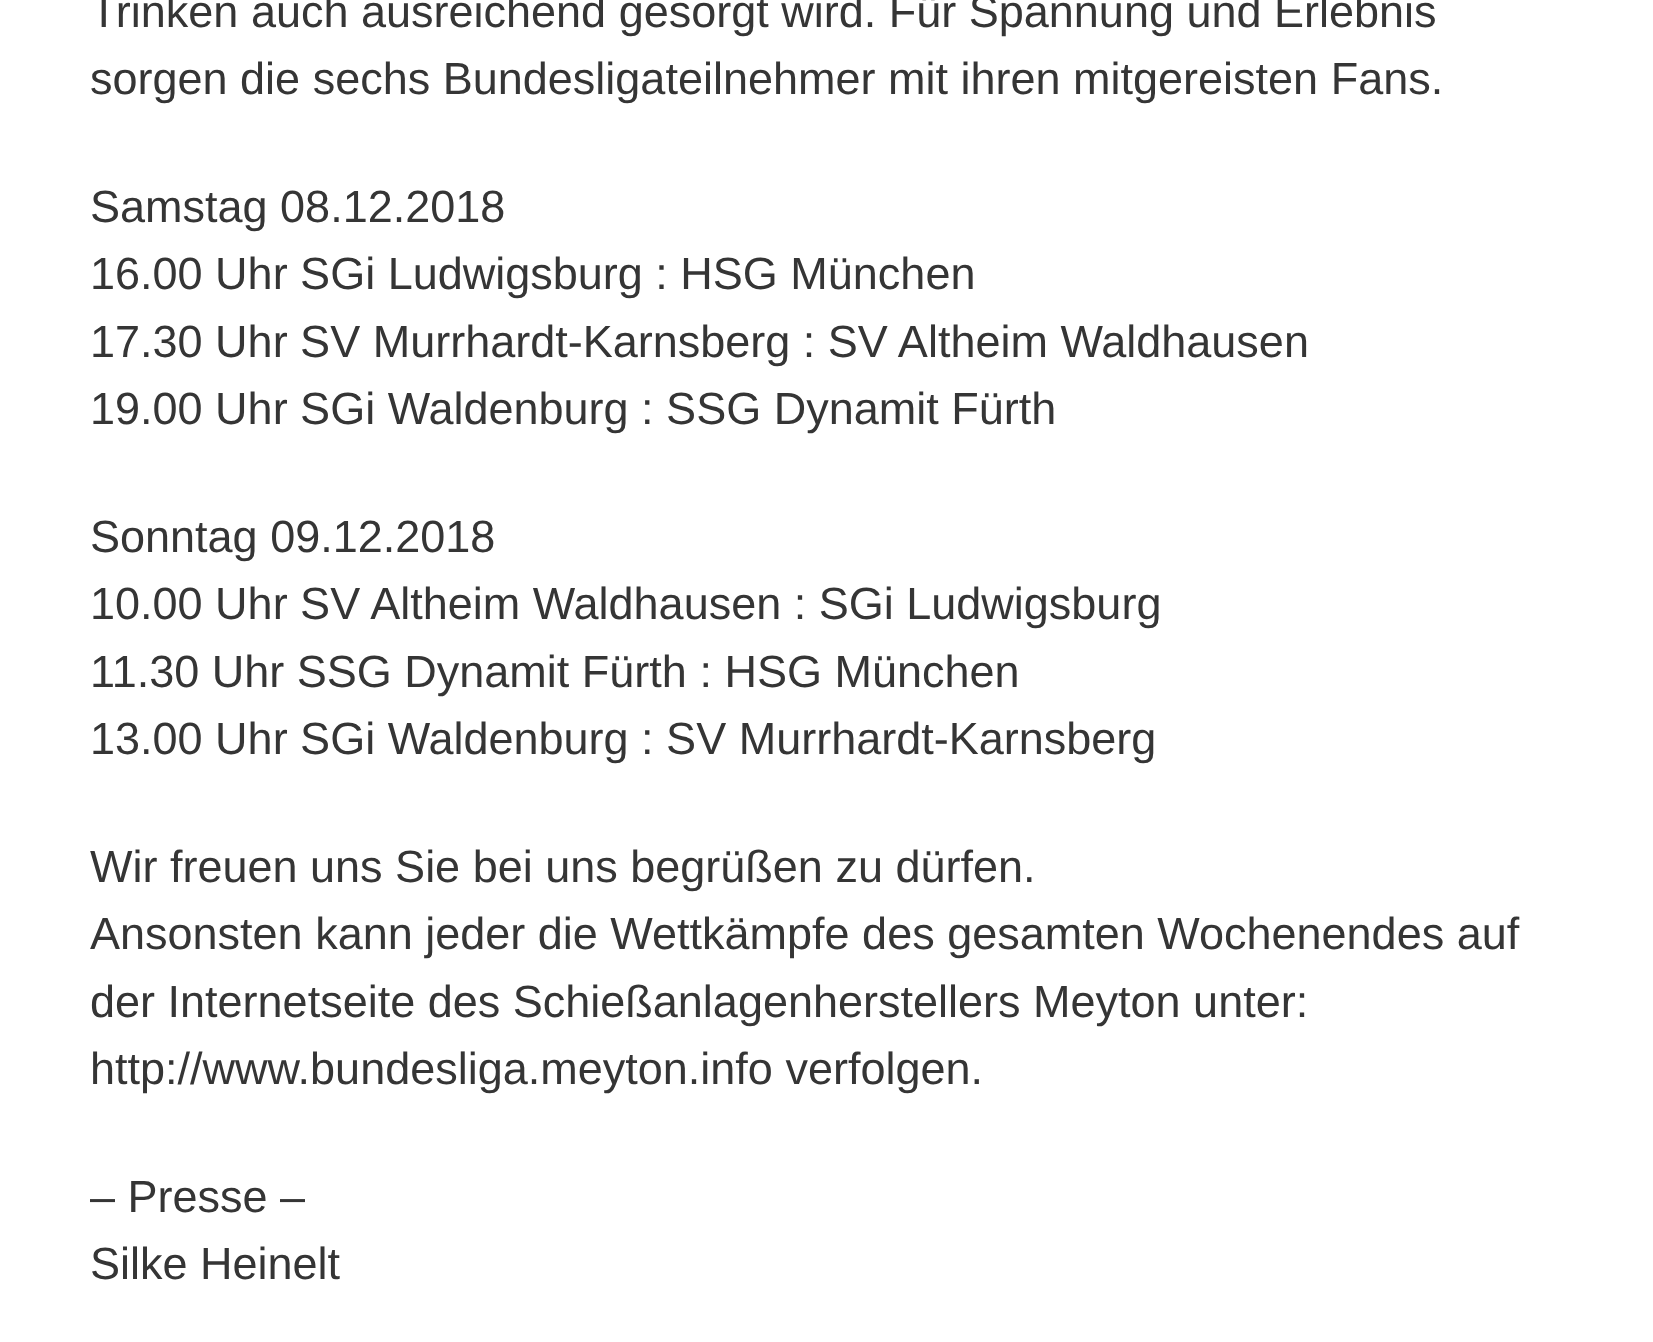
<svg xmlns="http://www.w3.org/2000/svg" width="1653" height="1342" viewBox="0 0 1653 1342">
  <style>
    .t1 { font: 45px Liberation Sans; fill: #353535; }
  </style>
  <rect width="100%" height="100%" fill="#fff"/>
  <text x="90" y="27" class="t1">Trinken auch ausreichend gesorgt wird. Für Spannung und Erlebnis</text>
  <text x="90" y="94" class="t1">sorgen die sechs Bundesligateilnehmer mit ihren mitgereisten Fans.</text>
  <text x="90" y="222" class="t1">Samstag 08.12.2018</text>
  <text x="90" y="289" class="t1">16.00 Uhr SGi Ludwigsburg : HSG München</text>
  <text x="90" y="357" class="t1">17.30 Uhr SV Murrhardt-Karnsberg : SV Altheim Waldhausen</text>
  <text x="90" y="424" class="t1">19.00 Uhr SGi Waldenburg : SSG Dynamit Fürth</text>
  <text x="90" y="552" class="t1">Sonntag 09.12.2018</text>
  <text x="90" y="619" class="t1">10.00 Uhr SV Altheim Waldhausen : SGi Ludwigsburg</text>
  <text x="90" y="687" class="t1">11.30 Uhr SSG Dynamit Fürth : HSG München</text>
  <text x="90" y="754" class="t1">13.00 Uhr SGi Waldenburg : SV Murrhardt-Karnsberg</text>
  <text x="90" y="882" class="t1">Wir freuen uns Sie bei uns begrüßen zu dürfen.</text>
  <text x="90" y="949" class="t1">Ansonsten kann jeder die Wettkämpfe des gesamten Wochenendes auf</text>
  <text x="90" y="1017" class="t1">der Internetseite des Schießanlagenherstellers Meyton unter:</text>
  <text x="90" y="1084" class="t1">http://www.bundesliga.meyton.info verfolgen.</text>
  <text x="90" y="1212" class="t1">– Presse –</text>
  <text x="90" y="1279" class="t1">Silke Heinelt</text>
</svg>
